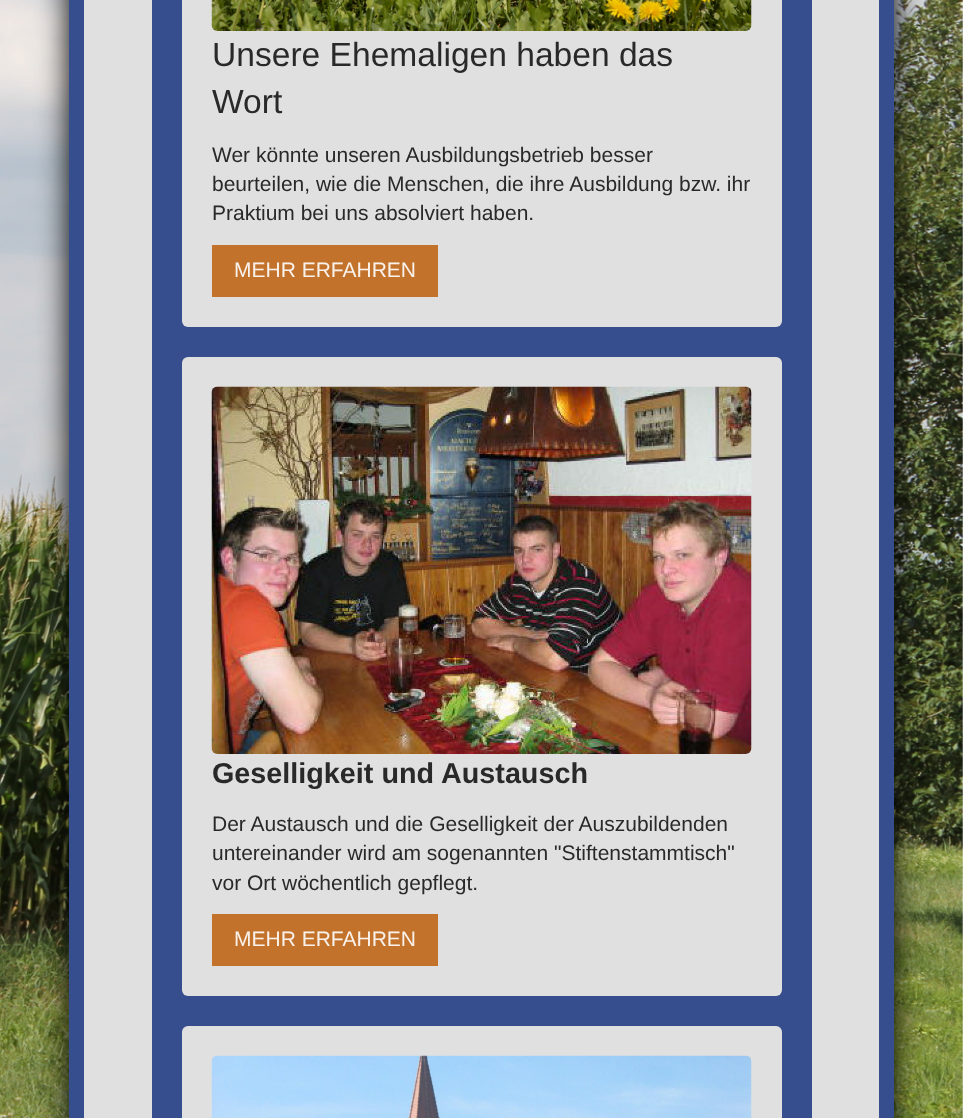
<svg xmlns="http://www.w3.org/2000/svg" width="963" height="1118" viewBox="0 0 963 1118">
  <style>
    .t1 { font: 33.6px Liberation Sans; fill: #292929; }
    .t2 { font: 21px Liberation Sans; fill: #292929; }
    .t3 { font: 21px Liberation Sans; fill: #f9f1ea; }
    .t4 { font: bold 28.75px Liberation Sans; fill: #292929; }
  </style>
  <rect width="100%" height="100%" fill="#fff"/>
  <image x="0" y="0" width="963" height="1118" href="images/1.png"/>
  <rect x="69" y="-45" width="825" height="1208" fill="#000" filter="blur(15px)"/>
  <rect x="69" y="0" width="825" height="1118" fill="#364e8e"/>
  <rect x="84" y="0" width="795" height="1118" fill="#e1e0e0"/>
  <rect x="152" y="0" width="660" height="1118" fill="#364e8e"/>
  <rect x="182" y="-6" width="600" height="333" rx="6" fill="#e1e0e0"/>
  <image x="211" y="0" width="541" height="31" href="images/2.png"/>
  <text x="212" y="66" class="t1">Unsere Ehemaligen haben das</text>
  <text x="212" y="113" class="t1">Wort</text>
  <text x="212" y="162" class="t2">Wer könnte unseren Ausbildungsbetrieb besser</text>
  <text x="212" y="191" class="t2">beurteilen, wie die Menschen, die ihre Ausbildung bzw. ihr</text>
  <text x="212" y="220" class="t2">Praktium bei uns absolviert haben.</text>
  <rect x="212" y="245" width="226" height="52" fill="#c2722a"/>
  <text x="234" y="277" class="t3">MEHR ERFAHREN</text>
  <rect x="182" y="357" width="600" height="639" rx="6" fill="#e1e0e0"/>
  <image x="211" y="386" width="541" height="368" href="images/3.png"/>
  <text x="212" y="783" class="t4">Geselligkeit und Austausch</text>
  <text x="212" y="831" class="t2">Der Austausch und die Geselligkeit der Auszubildenden</text>
  <text x="212" y="860" class="t2">untereinander wird am sogenannten "Stiftenstammtisch"</text>
  <text x="212" y="890" class="t2">vor Ort wöchentlich gepflegt.</text>
  <rect x="212" y="914" width="226" height="52" fill="#c2722a"/>
  <text x="234" y="946" class="t3">MEHR ERFAHREN</text>
  <rect x="182" y="1026" width="600" height="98" rx="6" fill="#e1e0e0"/>
  <image x="211" y="1055" width="541" height="63" href="images/4.png"/>
</svg>
